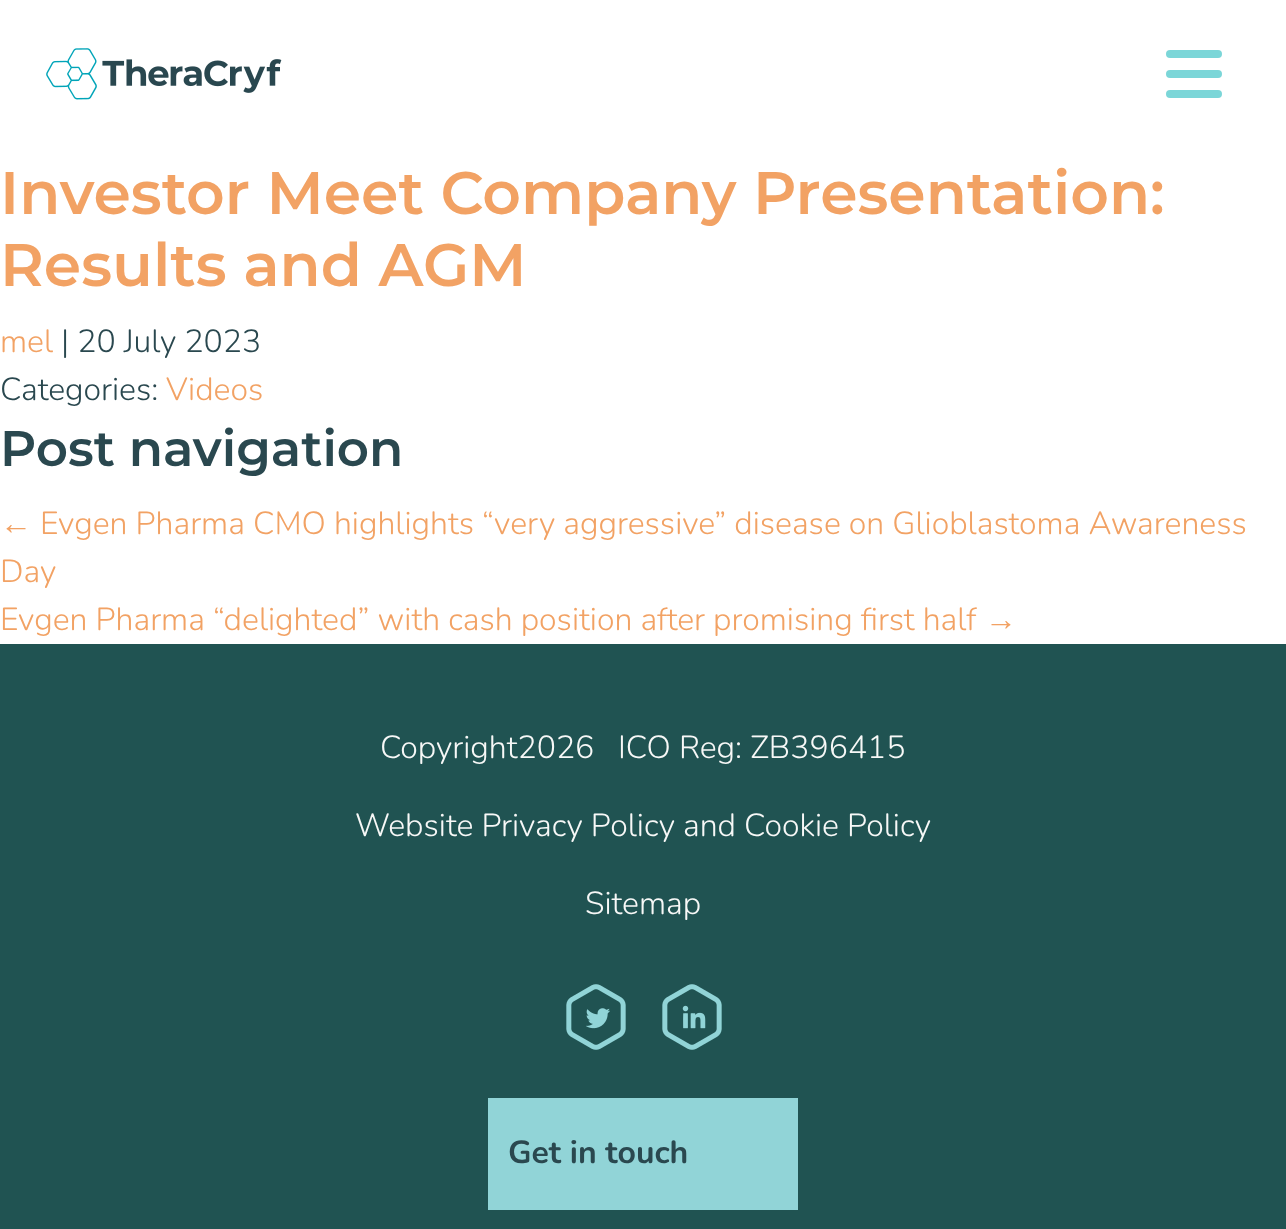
<svg xmlns="http://www.w3.org/2000/svg" width="1286" height="1229" viewBox="0 0 1286 1229">
  <style>
    .t1 { font: 600 60px Montserrat; fill: #f2a264; }
    .t2 { font: 300 32px Nunito; fill: #f2a264; }
    .t3 { font: 300 32px Nunito; fill: #2a484f; }
    .t4 { font: 600 50px Montserrat; fill: #2a484f; }
    .t5 { font: 32px Liberation Sans; fill: #f2a264; }
    .t6 { font: 300 32px Nunito; fill: #f7f8f7; }
    .t7 { font: bold 32px Nunito; fill: #2a484f; }
  </style>
  <rect width="100%" height="100%" fill="#fff"/>
  <image x="46" y="48" width="236" height="52" href="images/1.png"/>
  <rect x="1166" y="50" width="56" height="8" rx="4" fill="#7bd6d8"/>
  <rect x="1166" y="70" width="56" height="8" rx="4" fill="#7bd6d8"/>
  <rect x="1166" y="90" width="56" height="8" rx="4" fill="#7bd6d8"/>
  <text x="0" y="214" class="t1">Investor Meet Company Presentation:</text>
  <text x="0" y="286" class="t1">Results and AGM</text>
  <text x="0" y="352" class="t2">mel</text>
  <text x="61" y="352" class="t3">| 20 July 2023</text>
  <text x="0" y="400" class="t3">Categories:</text>
  <text x="166" y="400" class="t2">Videos</text>
  <text x="0" y="466" class="t4">Post navigation</text>
  <text x="0" y="534" class="t5">←</text>
  <text x="40" y="534" class="t2">Evgen Pharma CMO highlights “very aggressive” disease on Glioblastoma Awareness</text>
  <text x="0" y="582" class="t2">Day</text>
  <text x="0" y="630" class="t2">Evgen Pharma “delighted” with cash position after promising first half</text>
  <text x="985" y="630" class="t5">→</text>
  <rect x="0" y="644" width="1286" height="585" fill="#205352"/>
  <text x="380" y="758" class="t6">Copyright2026</text>
  <text x="618" y="758" class="t6">ICO Reg: ZB396415</text>
  <text x="355" y="836" class="t6">Website Privacy Policy and Cookie Policy</text>
  <text x="585" y="914" class="t6">Sitemap</text>
  <image x="566" y="984" width="60" height="66" href="images/2.png"/>
  <image x="662" y="984" width="60" height="66" href="images/3.png"/>
  <rect x="488" y="1098" width="310" height="112" fill="#91d4d7"/>
  <text x="508" y="1163" class="t7">Get in touch</text>
</svg>
